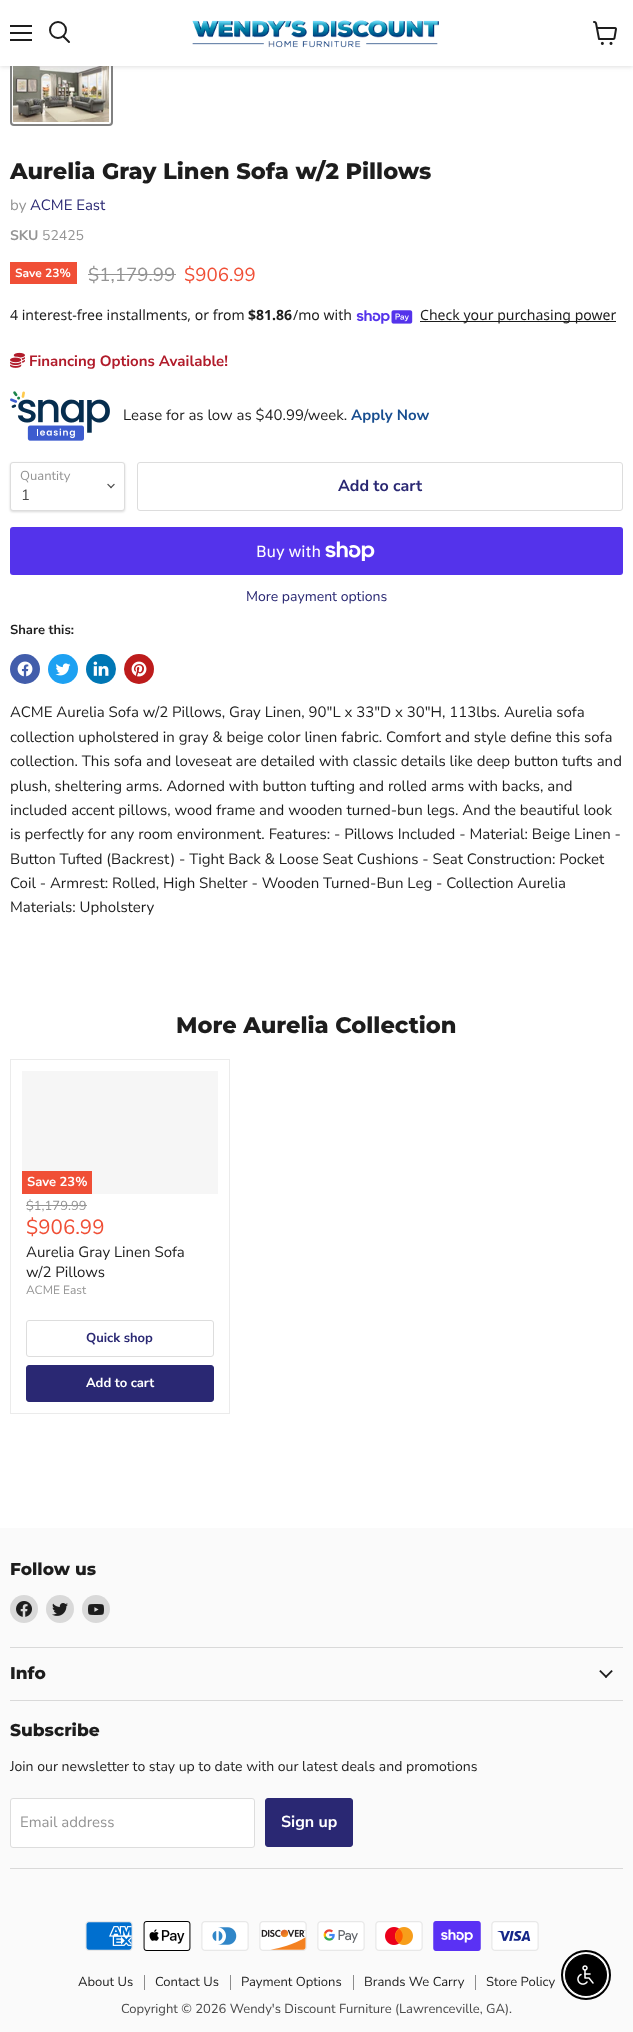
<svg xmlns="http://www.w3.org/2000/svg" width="633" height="2032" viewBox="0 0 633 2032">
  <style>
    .t1 { font: 800 22.5px Montserrat; fill: #1d1d1d; }
    .t2 { font: 15px Nunito Sans; fill: #949494; }
    .t3 { font: 15px Nunito Sans; fill: #2a2873; }
    .t4 { font: bold 14px Nunito Sans; fill: #949494; }
    .t5 { font: 14px Nunito Sans; fill: #949494; }
    .t6 { font: bold 12px Nunito Sans; fill: #fff; }
    .t7 { font: 18.75px Nunito Sans; fill: #949494; }
    .t8 { font: 18.75px Nunito Sans; fill: #f04f36; }
    .t9 { font: 14.05px Noto Sans; fill: #1d1d1d; }
    .t10 { font: bold 14.05px Noto Sans; fill: #1d1d1d; }
    .t11 { font: bold 15px Nunito Sans; fill: #b11b2a; }
    .t12 { font: 15px Nunito Sans; fill: #1d1d1d; }
    .t13 { font: bold 15px Nunito Sans; fill: #184e90; }
    .t14 { font: 13px Nunito Sans; fill: #949494; }
    .t15 { font: 15px Nunito Sans; fill: #494949; }
    .t16 { font: bold 16px Nunito Sans; fill: #2a2873; }
    .t17 { font: 16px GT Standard; fill: #fff; }
    .t18 { font: 14.05px Nunito Sans; fill: #2a2873; }
    .t19 { font: bold 13px Nunito Sans; fill: #1d1d1d; }
    .t20 { font: bold 13px Nunito Sans; fill: #fff; }
    .t21 { font: 20.5px Nunito Sans; fill: #f04f36; }
    .t22 { font: 12px Nunito Sans; fill: #949494; }
    .t23 { font: bold 13px Nunito Sans; fill: #2a2873; }
    .t24 { font: 800 17px Montserrat; fill: #1d1d1d; }
    .t25 { font: 14.05px Nunito Sans; fill: #1d1d1d; }
    .t26 { font: bold 16px Nunito Sans; fill: #fff; }
    .t27 { font: 13px Nunito Sans; fill: #1d1d1d; }
    .t28 { font: 13px Nunito Sans; fill: #494949; }
  </style>
  <rect width="100%" height="100%" fill="#fff"/>
  <rect x="11" y="60" width="101" height="65" rx="3" fill="none" stroke="#818181" stroke-width="2"/>
  <image x="13" y="66" width="96" height="56" href="images/3.png"/>
  <rect x="0" y="1" width="633" height="66" fill="#80808040" filter="blur(2px)"/>
  <rect x="0" y="0" width="633" height="66" fill="#fff"/>
  <rect x="10" y="25" width="22" height="2" fill="#1d1d1d"/>
  <rect x="10" y="32" width="22" height="2" fill="#1d1d1d"/>
  <rect x="10" y="39" width="22" height="2" fill="#1d1d1d"/>
  <path d="M69 42L63.5 36.5" fill="none" stroke="#1d1d1d" stroke-width="2" stroke-linecap="round"/>
  <circle cx="58" cy="30" r="8" fill="none" stroke="#1d1d1d" stroke-width="2"/>
  <image x="192" y="20" width="247" height="28" href="images/1.png"/>
  <image x="593" y="21" width="24" height="24" href="images/2.png"/>
  <text x="10" y="179" class="t1">Aurelia Gray Linen Sofa w/2 Pillows</text>
  <text x="10" y="210" class="t2">by</text>
  <text x="30" y="210" class="t3">ACME East</text>
  <text x="10" y="240" class="t4">SKU</text>
  <text x="42" y="240" class="t5">52425</text>
  <rect x="10" y="262" width="67" height="22" fill="#f04f36"/>
  <text x="15" y="277" class="t6">Save 23%</text>
  <text x="88" y="281" class="t7">$1,179.99</text>
  <rect x="88" y="274" width="88" height="1" fill="#949494"/>
  <text x="184" y="281" class="t8">$906.99</text>
  <text x="10" y="320" class="t9">4 interest-free installments, or from</text>
  <text x="248" y="320" class="t10">$81.86</text>
  <text x="293" y="320" class="t9">/mo with</text>
  <image x="356" y="310" width="57" height="14" href="images/4.png"/>
  <rect x="420" y="321" width="196" height="1" fill="#1d1d1d"/>
  <text x="420" y="320" class="t9">Check your purchasing power</text>
  <image x="10" y="352" width="15" height="16" href="images/5.png"/>
  <text x="29" y="366" class="t11">Financing Options Available!</text>
  <image x="10" y="391" width="100" height="50" href="images/6.png"/>
  <text x="123" y="420" class="t12">Lease for as low as $40.99/week.</text>
  <text x="351" y="420" class="t13">Apply Now</text>
  <rect x="10" y="463" width="115" height="49" rx="3" fill="#00000026" filter="blur(1px)"/>
  <rect x="10.5" y="462.5" width="114" height="48" rx="2.5" fill="#fff" stroke="#ddd"/>
  <text x="20" y="480" class="t14">Quantity</text>
  <image x="107" y="483" width="8" height="6" href="images/7.png"/>
  <text x="21" y="500" class="t15">1</text>
  <rect x="137.5" y="462.5" width="485" height="48" rx="2.5" fill="none" stroke="#ddd"/>
  <text x="338" y="491" class="t16">Add to cart</text>
  <rect x="10" y="527" width="613" height="48" rx="3" fill="#5433eb"/>
  <text x="256" y="557" class="t17">Buy with</text>
  <image x="325" y="541" width="50" height="20" href="images/8.png"/>
  <text x="246" y="601" class="t18">More payment options</text>
  <text x="10" y="634" class="t19">Share this:</text>
  <circle cx="25" cy="669" r="15" fill="#425dab"/>
  <image x="17" y="661" width="16" height="16" href="images/9.png"/>
  <circle cx="63" cy="669" r="15" fill="#1da1f2"/>
  <image x="55" y="663" width="16" height="13" href="images/10.png"/>
  <circle cx="101" cy="669" r="15" fill="#0077b5"/>
  <image x="93" y="661" width="16" height="15" href="images/11.png"/>
  <circle cx="139" cy="669" r="15" fill="#bd1c1c"/>
  <image x="131" y="661" width="16" height="16" href="images/12.png"/>
  <text x="10" y="717" class="t12">ACME Aurelia Sofa w/2 Pillows, Gray Linen, 90"L x 33"D x 30"H, 113lbs. Aurelia sofa</text>
  <text x="10" y="742" class="t12">collection upholstered in gray &amp; beige color linen fabric. Comfort and style define this sofa</text>
  <text x="10" y="766" class="t12">collection. This sofa and loveseat are detailed with classic details like deep button tufts and</text>
  <text x="10" y="791" class="t12">plush, sheltering arms. Adorned with button tufting and rolled arms with backs, and</text>
  <text x="10" y="815" class="t12">included accent pillows, wood frame and wooden turned-bun legs. And the beautiful look</text>
  <text x="10" y="839" class="t12">is perfectly for any room environment. Features: - Pillows Included - Material: Beige Linen -</text>
  <text x="10" y="864" class="t12">Button Tufted (Backrest) - Tight Back &amp; Loose Seat Cushions - Seat Construction: Pocket</text>
  <text x="10" y="888" class="t12">Coil - Armrest: Rolled, High Shelter - Wooden Turned-Bun Leg - Collection Aurelia</text>
  <text x="10" y="912" class="t12">Materials: Upholstery</text>
  <text x="176" y="1033" class="t1">More Aurelia Collection</text>
  <rect x="10.5" y="1059.5" width="219" height="354" fill="none" stroke="#ebebeb"/>
  <rect x="22" y="1071" width="196" height="123" fill="#f6f6f6"/>
  <rect x="22" y="1171" width="70" height="23" fill="#f04f36"/>
  <text x="27" y="1186" class="t20">Save 23%</text>
  <text x="26" y="1210" class="t14">$1,179.99</text>
  <rect x="26" y="1205" width="61" height="1" fill="#949494"/>
  <text x="26" y="1234" class="t21">$906.99</text>
  <text x="26" y="1257" class="t12">Aurelia Gray Linen Sofa</text>
  <text x="26" y="1277" class="t12">w/2 Pillows</text>
  <text x="26" y="1294" class="t22">ACME East</text>
  <rect x="26.5" y="1320.5" width="187" height="36" rx="2.5" fill="none" stroke="#ddd"/>
  <text x="86" y="1342" class="t23">Quick shop</text>
  <rect x="26.5" y="1365.5" width="187" height="36" rx="2.5" fill="#2a2873" stroke="#2a2873"/>
  <text x="86" y="1387" class="t20">Add to cart</text>
  <rect x="0" y="1528" width="633" height="504" fill="#fafafa"/>
  <rect x="10" y="1647" width="613" height="1" fill="#d9d9d9"/>
  <text x="10" y="1575" class="t24">Follow us</text>
  <circle cx="24" cy="1609" r="14" fill="#d9d9d9"/>
  <image x="16" y="1601" width="16" height="16" href="images/13.png"/>
  <circle cx="60" cy="1609" r="14" fill="#d9d9d9"/>
  <image x="52" y="1603" width="16" height="13" href="images/14.png"/>
  <circle cx="96" cy="1609" r="14" fill="#d9d9d9"/>
  <image x="88" y="1604" width="16" height="11" href="images/15.png"/>
  <rect x="10" y="1700" width="613" height="1" fill="#d9d9d9"/>
  <text x="10" y="1679" class="t24">Info</text>
  <image x="599" y="1670" width="14" height="8" href="images/16.png"/>
  <rect x="10" y="1868" width="613" height="1" fill="#d9d9d9"/>
  <text x="10" y="1736" class="t24">Subscribe</text>
  <text x="10" y="1771" class="t25">Join our newsletter to stay up to date with our latest deals and promotions</text>
  <rect x="10.5" y="1798.5" width="244" height="49" rx="2.5" fill="#fff" stroke="#ddd"/>
  <text x="20" y="1827" class="t2">Email address</text>
  <rect x="265.5" y="1798.5" width="87" height="48" rx="2.5" fill="#2a2873" stroke="#2a2873"/>
  <text x="281" y="1827" class="t26">Sign up</text>
  <image x="85" y="1921" width="48" height="30" href="images/17.png"/>
  <image x="143" y="1921" width="48" height="30" href="images/18.png"/>
  <image x="201" y="1921" width="48" height="30" href="images/19.png"/>
  <image x="259" y="1921" width="48" height="30" href="images/20.png"/>
  <image x="317" y="1921" width="48" height="30" href="images/21.png"/>
  <image x="375" y="1921" width="48" height="30" href="images/22.png"/>
  <image x="433" y="1921" width="48" height="30" href="images/23.png"/>
  <image x="491" y="1921" width="48" height="30" href="images/24.png"/>
  <rect x="144" y="1975" width="1" height="15" fill="#8c8c8c"/>
  <text x="78" y="1986" class="t27">About Us</text>
  <rect x="230" y="1975" width="1" height="15" fill="#8c8c8c"/>
  <text x="155" y="1986" class="t27">Contact Us</text>
  <rect x="353" y="1975" width="1" height="15" fill="#8c8c8c"/>
  <text x="241" y="1986" class="t27">Payment Options</text>
  <rect x="475" y="1975" width="1" height="15" fill="#8c8c8c"/>
  <text x="364" y="1986" class="t27">Brands We Carry</text>
  <text x="486" y="1986" class="t27">Store Policy</text>
  <text x="121" y="2013" class="t28">Copyright © 2026 Wendy's Discount Furniture (Lawrenceville, GA).</text>
  <circle cx="586" cy="1975" r="24" fill="none" stroke="#000" stroke-width="2"/>
  <circle cx="586" cy="1975" r="20.5" fill="#000" stroke="#000"/>
  <image x="577" y="1965" width="17" height="20" href="images/25.png"/>
</svg>
